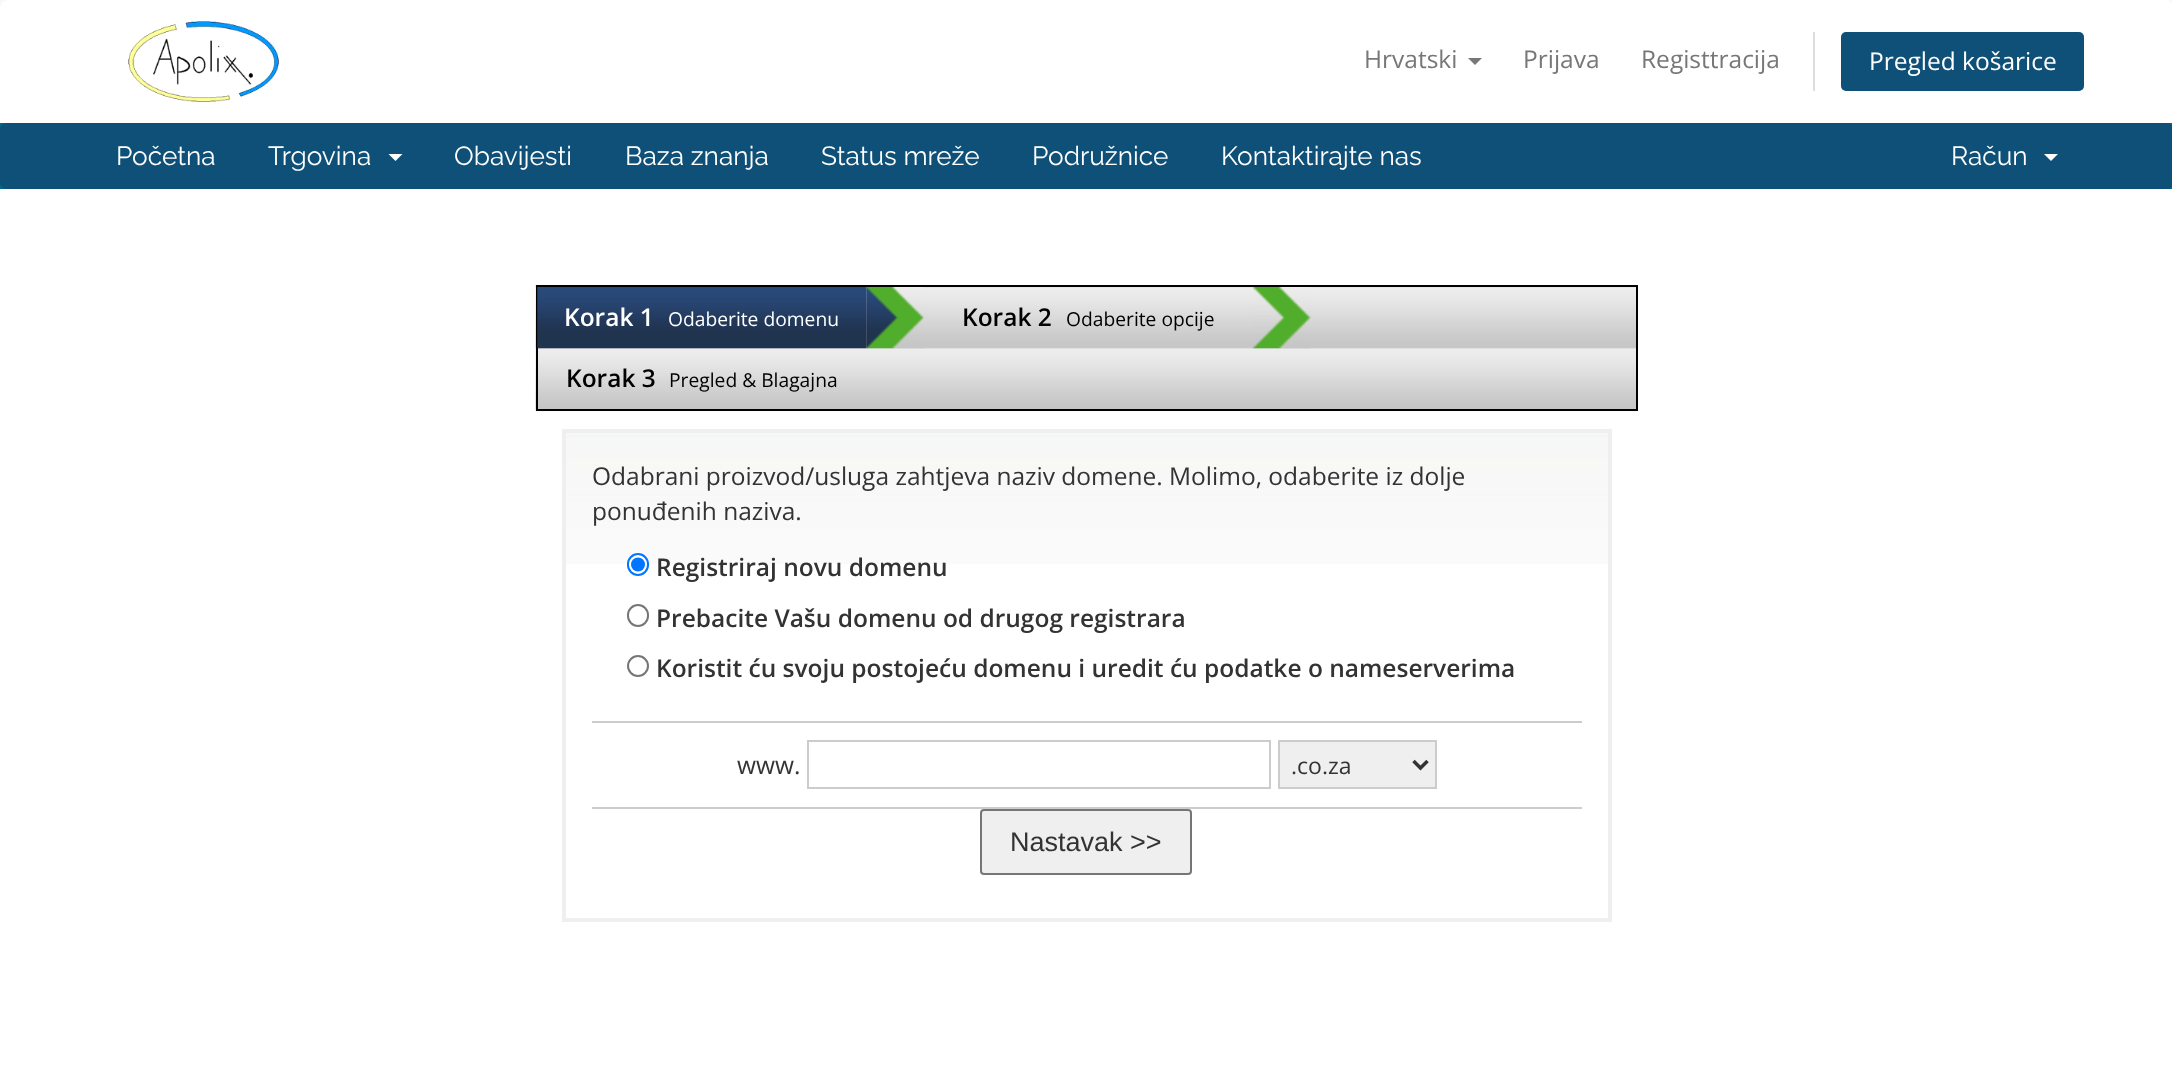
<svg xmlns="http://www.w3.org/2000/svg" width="2172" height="1079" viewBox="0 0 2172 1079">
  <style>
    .t1 { font: 24.5px Open Sans; fill: #777; }
    .t2 { font: 24.5px Open Sans; fill: #fff; }
    .t3 { font: 26.25px Raleway; fill: #fff; }
    .t4 { font: 600 24.5px Open Sans; fill: #fff; }
    .t5 { font: 19.25px Open Sans; fill: #fff; }
    .t6 { font: 600 24.5px Open Sans; fill: #000; }
    .t7 { font: 19.25px Open Sans; fill: #000; }
    .t8 { font: 24.5px Open Sans; fill: #333; }
    .t9 { font: 600 24.5px Open Sans; fill: #333; }
    .t10 { font: 23px Open Sans; fill: #333; }
    .t11 { font: 27px Liberation Sans; fill: #333; }
  </style>
  <rect width="100%" height="100%" fill="#f8f8f8"/>
  <path d="M9 0H2165C2170 0 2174 4 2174 9V123H0V9C0 4 4 0 9 0Z" fill="#fff"/>
  <image x="128" y="21" width="151" height="81" href="images/1.png"/>
  <text x="1364" y="68" class="t1">Hrvatski</text>
  <path d="M1468 58H1482L1475 65Z" fill="#777"/>
  <text x="1523" y="68" class="t1">Prijava</text>
  <text x="1641" y="68" class="t1">Registtracija</text>
  <rect x="1813" y="32" width="2" height="59" fill="#ddd"/>
  <rect x="1841" y="32" width="243" height="59" rx="5" fill="#0e5077"/>
  <text x="1869" y="70" class="t2">Pregled košarice</text>
  <rect x="0" y="123" width="2172" height="66" fill="#006687"/>
  <rect x="0" y="123" width="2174" height="66" rx="7" fill="#0e5077"/>
  <text x="116" y="165" class="t3">Početna</text>
  <text x="268" y="165" class="t3">Trgovina</text>
  <path d="M388.5 154H402.5L395.5 161Z" fill="#fff"/>
  <text x="454" y="165" class="t3">Obavijesti</text>
  <text x="625" y="165" class="t3">Baza znanja</text>
  <text x="821" y="165" class="t3">Status mreže</text>
  <text x="1032" y="165" class="t3">Podružnice</text>
  <text x="1221" y="165" class="t3">Kontaktirajte nas</text>
  <text x="1951" y="165" class="t3">Račun</text>
  <path d="M2044 154H2058L2051 161Z" fill="#fff"/>
  <rect x="0" y="189" width="2172" height="890" fill="#fff"/>
  <image x="535" y="285" width="1103" height="127" href="images/2.png"/>
  <rect x="537" y="286" width="1100" height="124" fill="none" stroke="#000" stroke-width="2"/>
  <image x="537" y="287" width="330" height="62" href="images/3.png"/>
  <text x="564" y="326" class="t4">Korak 1</text>
  <text x="668" y="326" class="t5">Odaberite domenu</text>
  <image x="866" y="287" width="58" height="62" href="images/4.png"/>
  <text x="962" y="326" class="t6">Korak 2</text>
  <text x="1066" y="326" class="t7">Odaberite opcije</text>
  <image x="1253" y="287" width="58" height="62" href="images/5.png"/>
  <text x="566" y="387" class="t6">Korak 3</text>
  <text x="669" y="387" class="t7">Pregled &amp; Blagajna</text>
  <image x="566" y="433" width="1042" height="131" href="images/6.png"/>
  <rect x="564" y="431" width="1046" height="489" fill="none" stroke="#efefef" stroke-width="4"/>
  <text x="592" y="485" class="t8">Odabrani proizvod/usluga zahtjeva naziv domene. Molimo, odaberite iz dolje</text>
  <text x="592" y="520" class="t8">ponuđenih naziva.</text>
  <rect x="628" y="554" width="20" height="21" rx="10" fill="#fff" stroke="#0075ff" stroke-width="2"/>
  <circle cx="638" cy="564.5" r="7" fill="#0075ff"/>
  <text x="656" y="576" class="t9">Registriraj novu domenu</text>
  <rect x="628" y="605" width="20" height="21" rx="10" fill="none" stroke="#767676" stroke-width="2"/>
  <text x="656" y="627" class="t9">Prebacite Vašu domenu od drugog registrara</text>
  <circle cx="638" cy="666" r="10" fill="none" stroke="#767676" stroke-width="2"/>
  <text x="656" y="677" class="t9">Koristit ću svoju postojeću domenu i uredit ću podatke o nameserverima</text>
  <rect x="592" y="721" width="990" height="2" fill="#ccc"/>
  <rect x="592" y="807" width="990" height="2" fill="#ccc"/>
  <text x="737" y="774" class="t8">www.</text>
  <rect x="808" y="741" width="462" height="47" fill="none" stroke="#ccc" stroke-width="2"/>
  <rect x="1279" y="741" width="157" height="47" fill="#efefef" stroke="#ccc" stroke-width="2"/>
  <path d="M1413.5 761L1420.5 768L1427.5 761" fill="none" stroke="#333" stroke-width="3.5"/>
  <text x="1291" y="774" class="t10">.co.za</text>
  <rect x="981" y="810" width="210" height="64" rx="3" fill="#efefef" stroke="#767676" stroke-width="2"/>
  <text x="1010" y="851" class="t11">Nastavak &gt;&gt;</text>
</svg>
